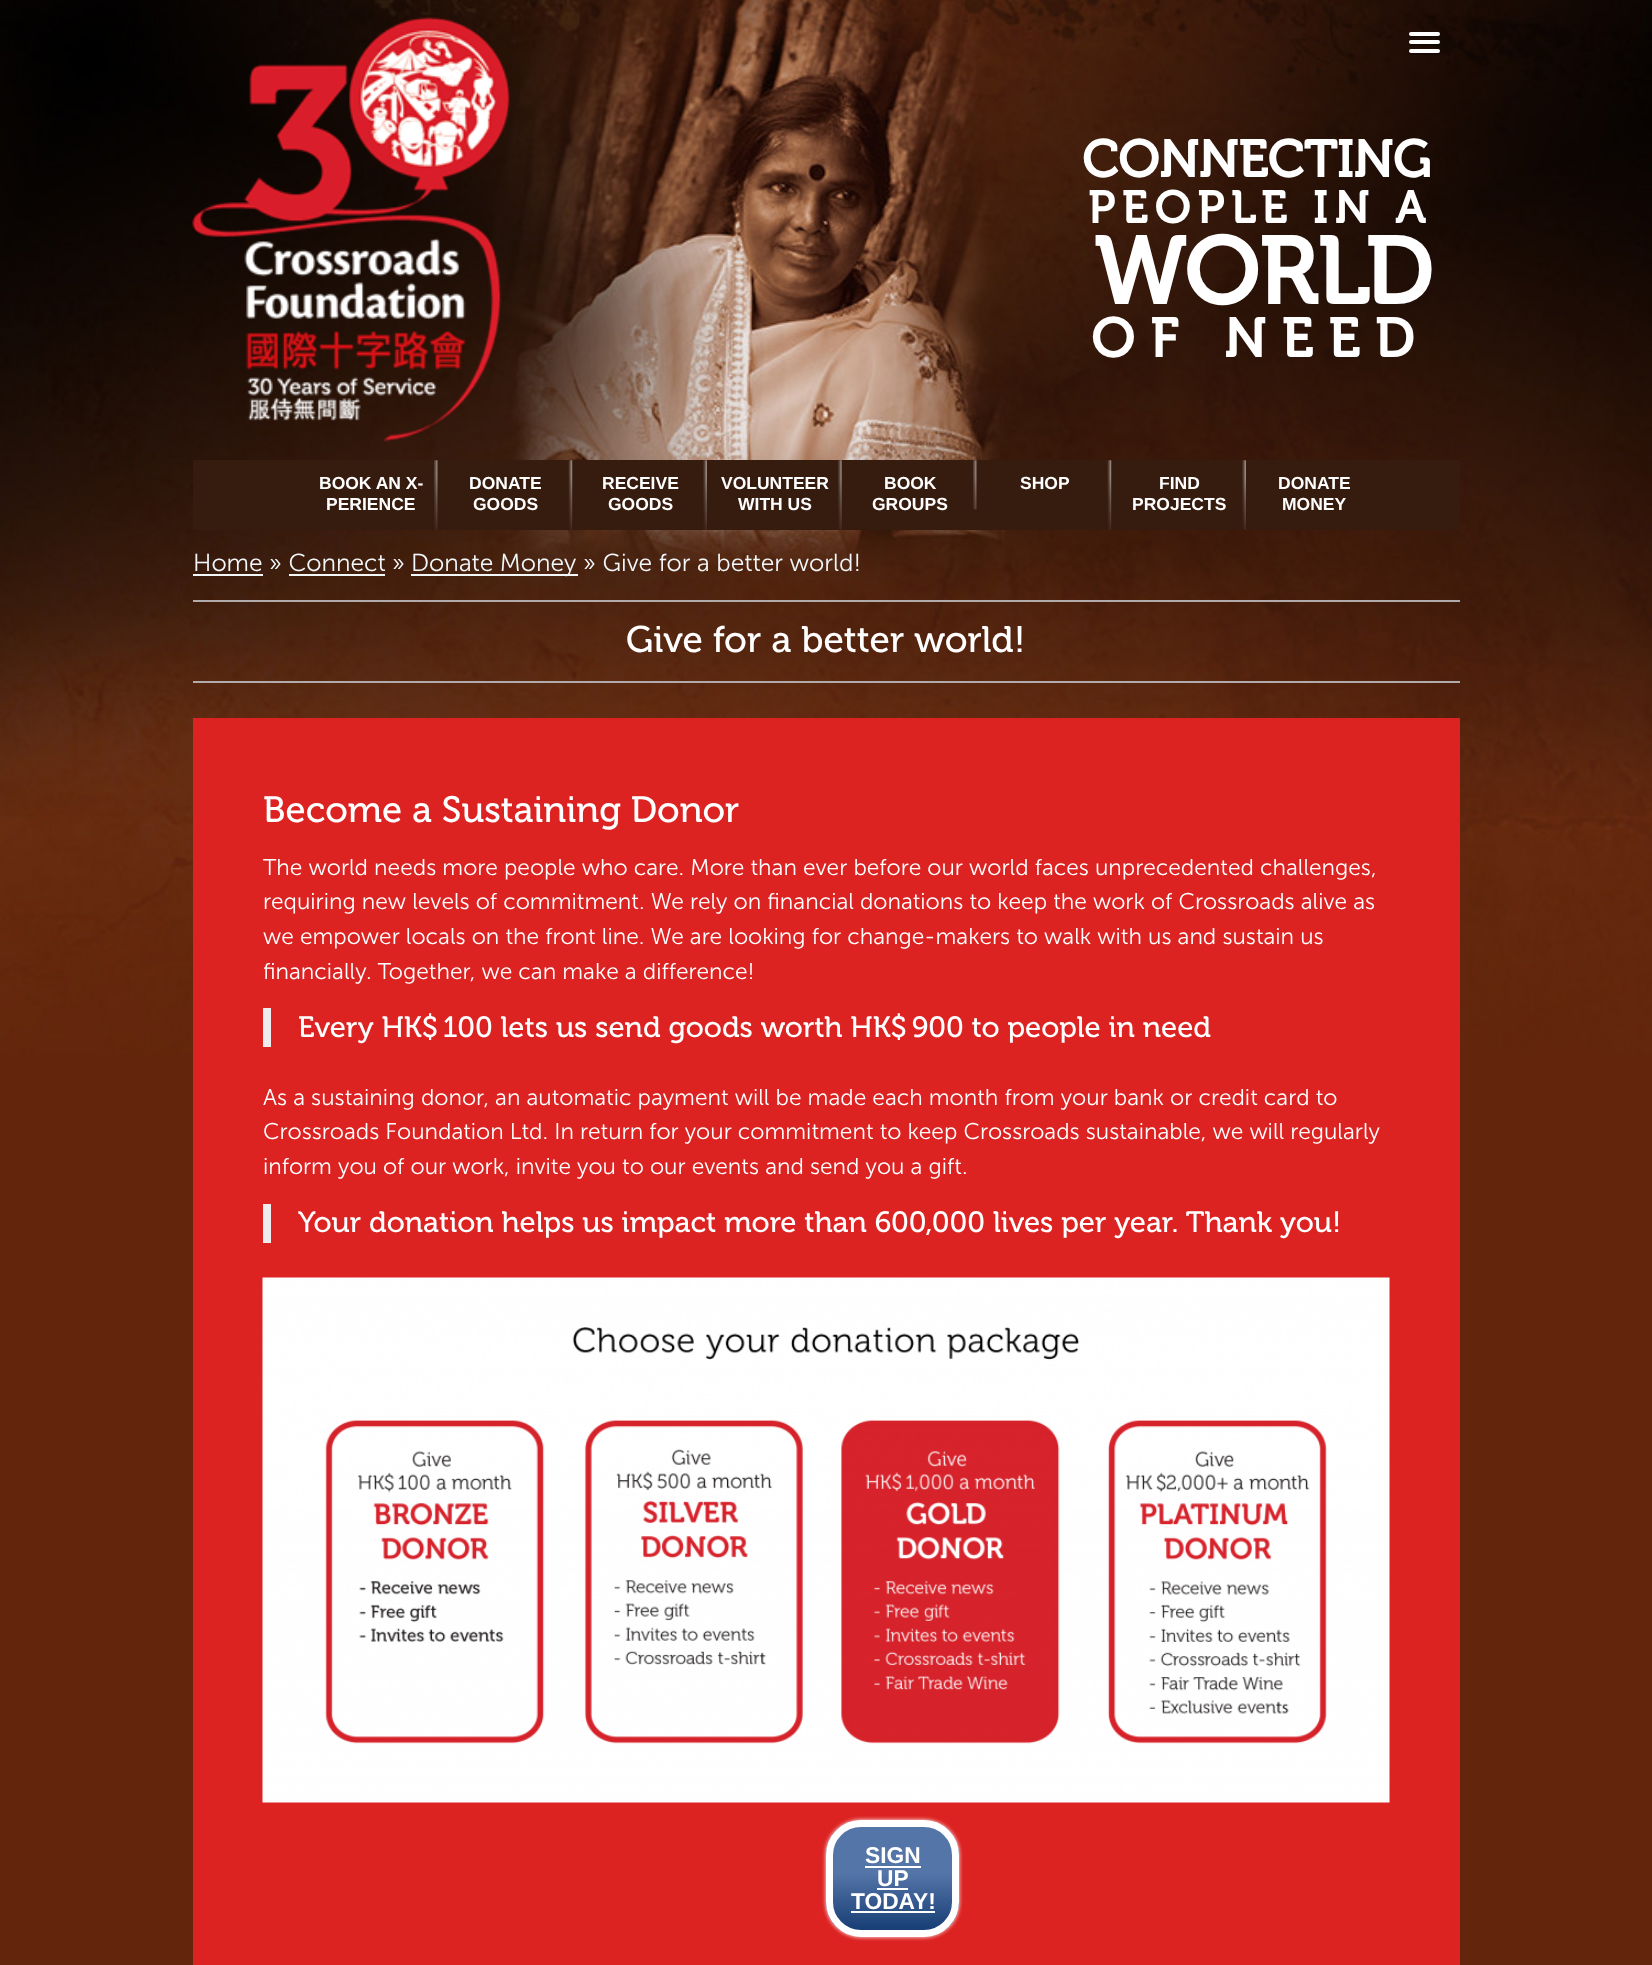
<svg xmlns="http://www.w3.org/2000/svg" width="1652" height="1965" viewBox="0 0 1652 1965">
  <style>
    .t1 { font: bold 51.75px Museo; fill: #fff; }
    .t2 { font: bold 44.75px Museo; letter-spacing: 7.25px; fill: #fff; }
    .t3 { font: bold 94px Museo; fill: #fff; }
    .t4 { font: bold 54.5px Museo; letter-spacing: 15.75px; fill: #fff; }
    .t5 { font: bold 17.5px Liberation Sans; fill: #fff; }
    .t6 { font: 300 24.5px Museo Sans; fill: #f2f7fa; }
    .t7 { font: 37px Museo; fill: #fff; }
    .t8 { font: 36.6px Museo; fill: #fff; }
    .t9 { font: 300 22.75px Museo Sans; fill: #fff; }
    .t10 { font: 29.25px Museo; fill: #fff; }
    .t11 { font: bold 22.75px Liberation Sans; fill: #fff; }
  </style>
  <defs>
    <clipPath id="clip1"><rect x="826" y="1820" width="133" height="117" rx="35"/></clipPath>
    <linearGradient id="g1" gradientUnits="userSpaceOnUse" x1="893" y1="1827" x2="893" y2="1930"><stop offset="0.45" stop-color="#5475a8"/><stop offset="1" stop-color="#173e75"/></linearGradient>
  </defs>
  <rect width="100%" height="100%" fill="#63250c"/>
  <image x="0" y="0" width="1652" height="1054" href="images/1.png"/>
  <path d="M1409 34.5C1408 38 1414.5 37 1415.5 37H1433.5C1434.5 37 1441 38 1440 34.5L1438.5 35H1410.5Z" fill="#00000040"/>
  <rect x="1409" y="32" width="31" height="4" rx="2" fill="#fff"/>
  <path d="M1409 43C1407.5 47 1414.5 46 1415.5 46H1433.5C1434.5 46 1441.5 47 1440 43L1438.5 43.5H1410.5Z" fill="#00000040"/>
  <rect x="1409" y="40" width="31" height="4" rx="2" fill="#fff"/>
  <path d="M1409.5 52C1407 56 1415 55 1415.5 55H1433.5C1434 55 1442 56 1439.5 52L1438.5 52.5H1410.5Z" fill="#00000040"/>
  <rect x="1409" y="49" width="31" height="4" rx="2" fill="#fff"/>
  <image x="192" y="17" width="318" height="425" href="images/2.png"/>
  <text x="1082" y="177" class="t1">CONNECTING</text>
  <text x="1088" y="223" class="t2">PEOPLE IN A</text>
  <text x="1094" y="304" class="t3">WORLD</text>
  <text x="1091" y="357" class="t4">OF NEED</text>
  <rect x="193" y="460" width="1267" height="70" fill="#361b0f"/>
  <text x="319" y="489" class="t5">BOOK AN X-</text>
  <text x="326" y="510" class="t5">PERIENCE</text>
  <image x="434" y="460" width="4" height="70" href="images/3.png"/>
  <text x="469" y="489" class="t5">DONATE</text>
  <text x="473" y="510" class="t5">GOODS</text>
  <image x="568" y="460" width="5" height="70" href="images/4.png"/>
  <text x="602" y="489" class="t5">RECEIVE</text>
  <text x="608" y="510" class="t5">GOODS</text>
  <image x="703" y="460" width="4" height="70" href="images/5.png"/>
  <text x="721" y="489" class="t5">VOLUNTEER</text>
  <text x="738" y="510" class="t5">WITH US</text>
  <image x="838" y="460" width="4" height="70" href="images/6.png"/>
  <text x="884" y="489" class="t5">BOOK</text>
  <text x="872" y="510" class="t5">GROUPS</text>
  <image x="973" y="460" width="4" height="50" href="images/7.png"/>
  <text x="1020" y="489" class="t5">SHOP</text>
  <image x="1107" y="460" width="5" height="70" href="images/8.png"/>
  <text x="1159" y="489" class="t5">FIND</text>
  <text x="1132" y="510" class="t5">PROJECTS</text>
  <image x="1242" y="460" width="4" height="70" href="images/5.png"/>
  <text x="1278" y="489" class="t5">DONATE</text>
  <text x="1282" y="510" class="t5">MONEY</text>
  <text x="193" y="571" class="t6">Home</text>
  <rect x="193" y="574" width="70" height="2" fill="#f2f7fa"/>
  <text x="269" y="571" class="t6">» Connect</text>
  <rect x="289" y="574" width="96" height="2" fill="#f2f7fa"/>
  <text x="392" y="571" class="t6">»</text>
  <rect x="411" y="574" width="167" height="2" fill="#f2f7fa"/>
  <text x="411" y="571" class="t6">Donate Money</text>
  <text x="583" y="571" class="t6">» Give for a better world!</text>
  <rect x="193" y="600" width="1267" height="2" fill="#b1abab"/>
  <rect x="193" y="681" width="1267" height="2" fill="#b1abab"/>
  <text x="626" y="652" class="t7">Give for a better world!</text>
  <rect x="193" y="718" width="1267" height="1247" fill="#d22"/>
  <text x="263" y="822" class="t8">Become a Sustaining Donor</text>
  <text x="263" y="875" class="t9">The world needs more people who care. More than ever before our world faces unprecedented challenges,</text>
  <text x="263" y="909" class="t9">requiring new levels of commitment. We rely on financial donations to keep the work of Crossroads alive as</text>
  <text x="263" y="944" class="t9">we empower locals on the front line. We are looking for change-makers to walk with us and sustain us</text>
  <text x="263" y="979" class="t9">financially. Together, we can make a difference!</text>
  <rect x="263" y="1008" width="8" height="39" fill="#eee"/>
  <text x="298" y="1037" class="t10">Every HK$ 100 lets us send goods worth HK$ 900 to people in need</text>
  <text x="263" y="1105" class="t9">As a sustaining donor, an automatic payment will be made each month from your bank or credit card to</text>
  <text x="263" y="1139" class="t9">Crossroads Foundation Ltd. In return for your commitment to keep Crossroads sustainable, we will regularly</text>
  <text x="263" y="1174" class="t9">inform you of our work, invite you to our events and send you a gift.</text>
  <rect x="263" y="1204" width="8" height="39" fill="#eee"/>
  <text x="298" y="1232" class="t10">Your donation helps us impact more than 600,000 lives per year. Thank you!</text>
  <image x="262" y="1277" width="1128" height="526" href="images/9.png"/>
  <rect x="826" y="1820" width="133" height="117" rx="35" fill="#fff" filter="blur(2px)"/>
  <g clip-path="url(#clip1)">
    <rect x="826" y="1827" width="133" height="103" fill="url(#g1)"/>
  </g>
  <rect x="829.5" y="1823.5" width="126" height="110" rx="31.5" fill="none" stroke="#fff" stroke-width="7"/>
  <text x="865" y="1863" class="t11">SIGN</text>
  <rect x="865" y="1866" width="56" height="2" fill="#fff"/>
  <text x="877" y="1886" class="t11">UP</text>
  <rect x="877" y="1888" width="31" height="2" fill="#fff"/>
  <text x="851" y="1909" class="t11">TODAY!</text>
  <rect x="851" y="1911" width="84" height="2" fill="#fff"/>
</svg>
